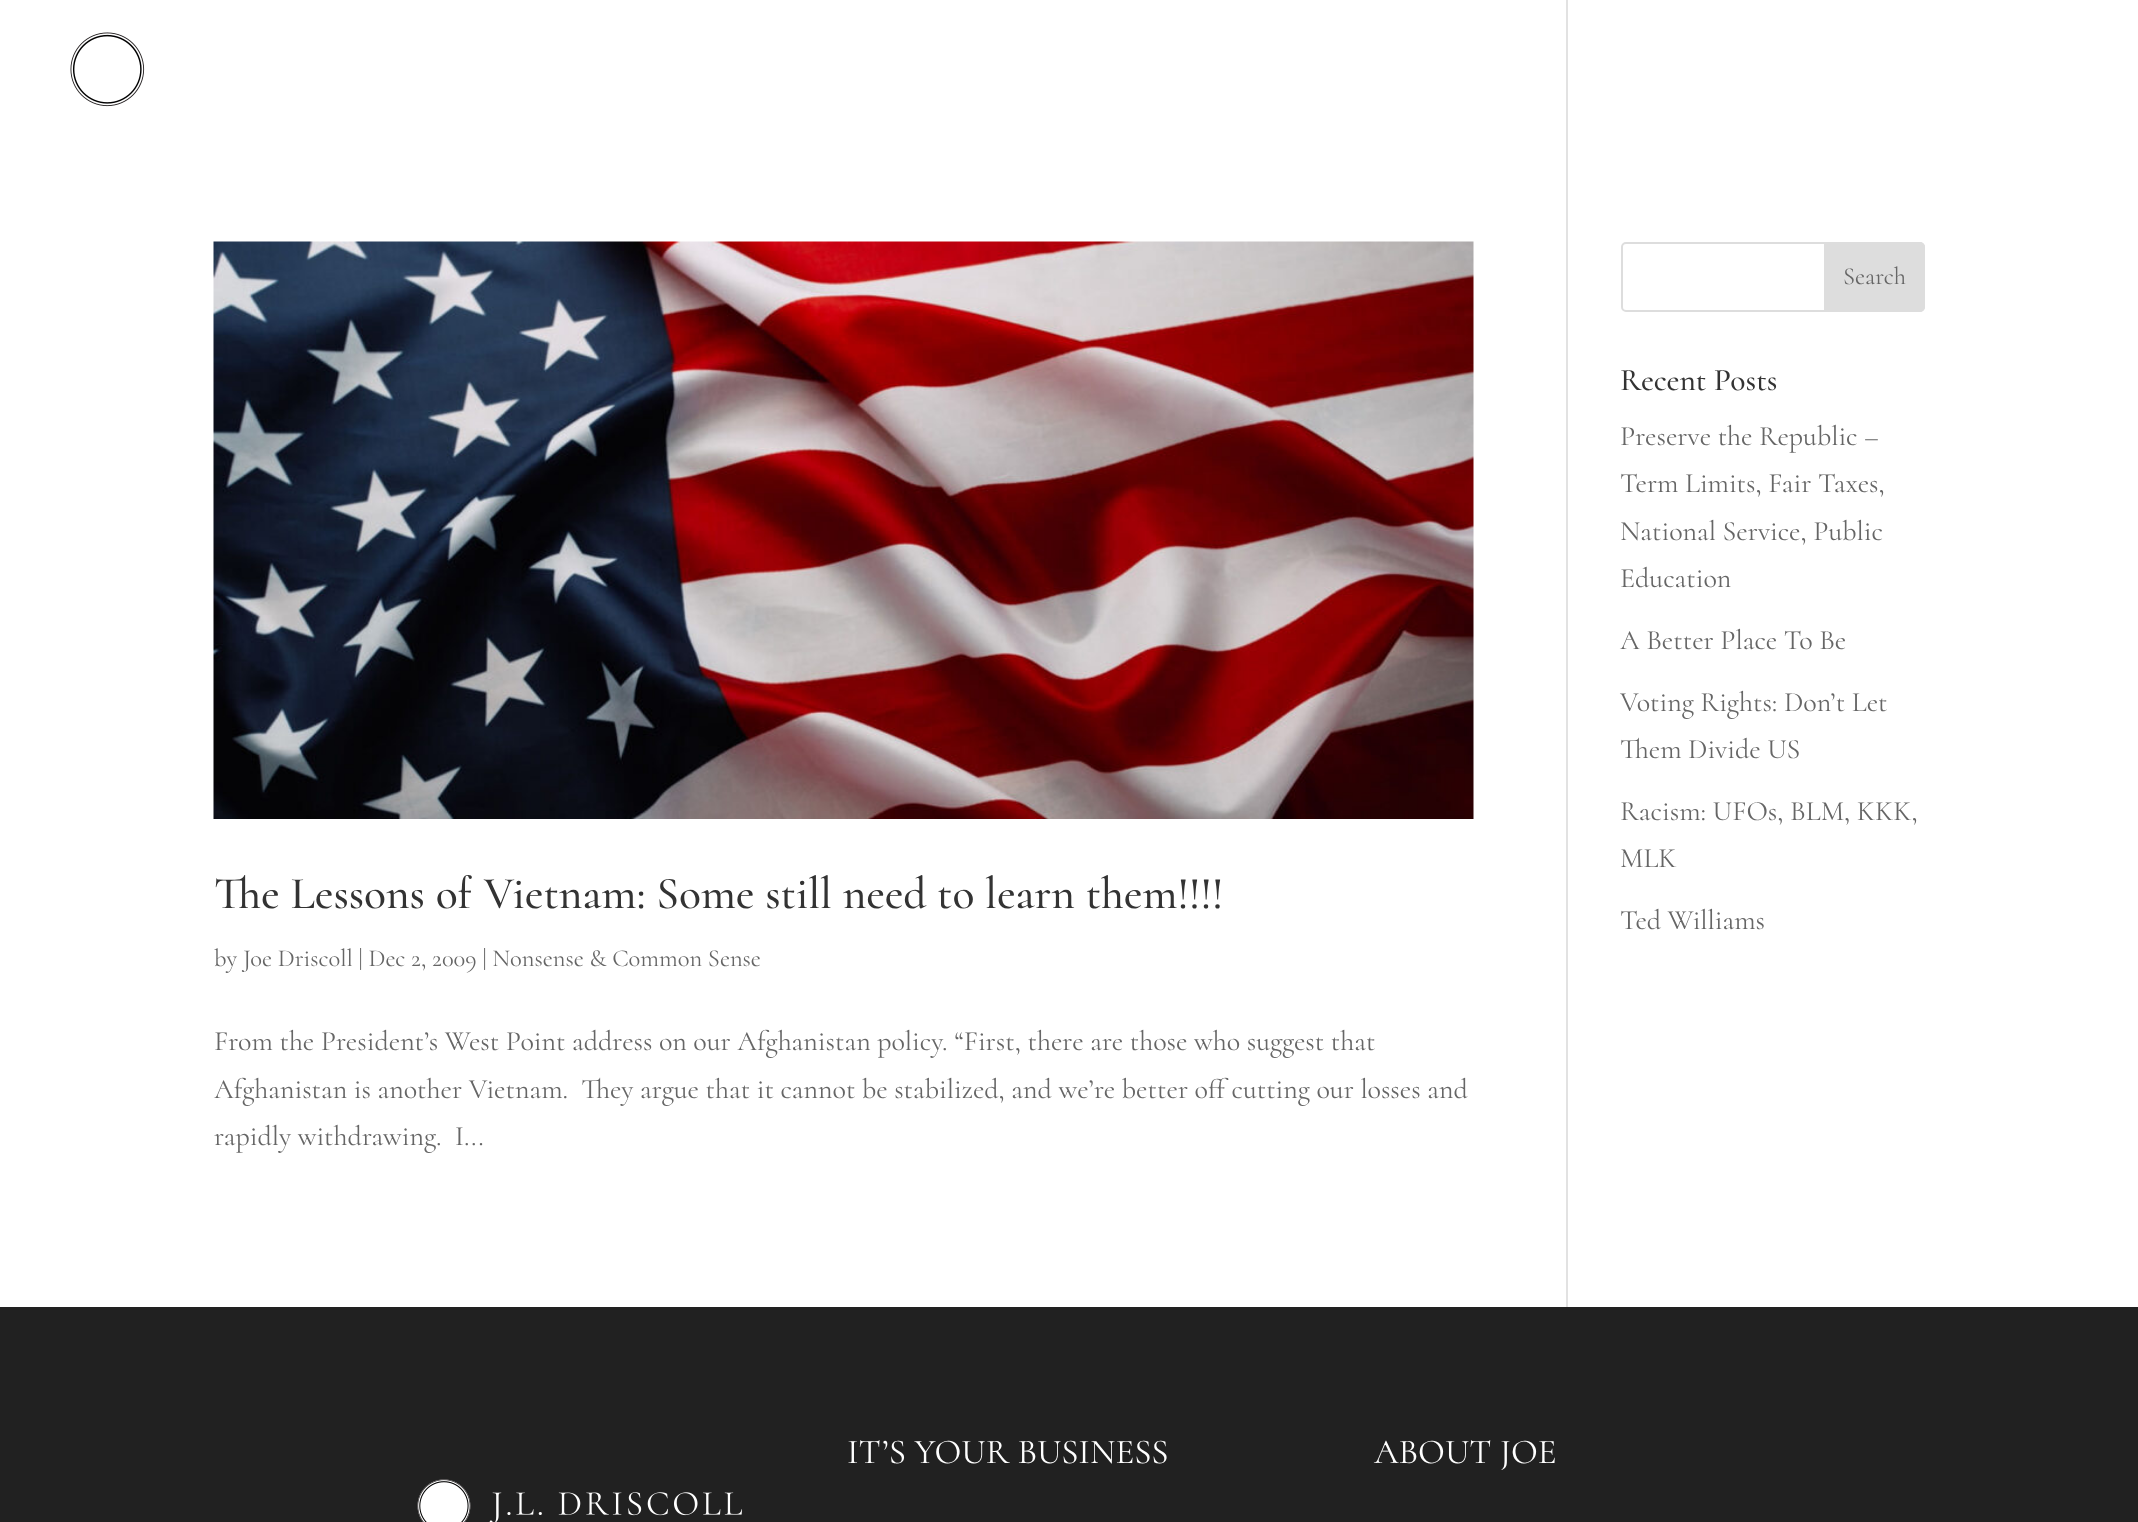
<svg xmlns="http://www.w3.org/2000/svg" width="2138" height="1522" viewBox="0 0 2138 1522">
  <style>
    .t1 { font: 300 24.5px 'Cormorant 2'; fill: #666; }
    .t2 { font: 300 31.5px Cormorant; fill: #333; }
    .t3 { font: 300 28px 'Cormorant 2'; fill: #666; }
    .t4 { font: 300 45.5px Cormorant; fill: #333; }
    .t5 { font: 300 35px 'Cormorant 2'; fill: #fff; }
  </style>
  <rect width="100%" height="100%" fill="#fff"/>
  <image x="70" y="32" width="75" height="75" href="images/1.png"/>
  <rect x="1566" y="0" width="2" height="1307" fill="#e2e2e2"/>
  <rect x="1622" y="243" width="302" height="68" rx="4" fill="none" stroke="#ddd" stroke-width="2"/>
  <path d="M1825 243H1920C1922 243 1924 245 1924 247V307C1924 309 1922 311 1920 311H1825Z" fill="#ddd" stroke="#ddd" stroke-width="2"/>
  <text x="1843" y="284" class="t1">Search</text>
  <text x="1620" y="390" class="t2">Recent Posts</text>
  <text x="1620" y="445" class="t3">Preserve the Republic –</text>
  <text x="1620" y="492" class="t3">Term Limits, Fair Taxes,</text>
  <text x="1620" y="540" class="t3">National Service, Public</text>
  <text x="1620" y="587" class="t3">Education</text>
  <text x="1620" y="649" class="t3">A Better Place To Be</text>
  <text x="1620" y="711" class="t3">Voting Rights: Don’t Let</text>
  <text x="1620" y="758" class="t3">Them Divide US</text>
  <text x="1620" y="820" class="t3">Racism: UFOs, BLM, KKK,</text>
  <text x="1620" y="867" class="t3">MLK</text>
  <text x="1620" y="929" class="t3">Ted Williams</text>
  <image x="213" y="241" width="1261" height="578" href="images/2.png"/>
  <text x="214" y="908" class="t4">The Lessons of Vietnam: Some still need to learn them!!!!</text>
  <text x="214" y="966" class="t1">by Joe Driscoll | Dec 2, 2009 | Nonsense &amp; Common Sense</text>
  <text x="214" y="1050" class="t3">From the President’s West Point address on our Afghanistan policy. “First, there are those who suggest that</text>
  <text x="214" y="1098" class="t3" xml:space="preserve">Afghanistan is another Vietnam.  They argue that it cannot be stabilized, and we’re better off cutting our losses and</text>
  <text x="214" y="1145" class="t3" xml:space="preserve">rapidly withdrawing.  I...</text>
  <rect x="0" y="1307" width="2138" height="215" fill="#212121"/>
  <text x="847" y="1463" class="t5">IT’S YOUR BUSINESS</text>
  <text x="1374" y="1463" class="t5">ABOUT JOE</text>
  <image x="417" y="1479" width="325" height="43" href="images/3.png"/>
</svg>
